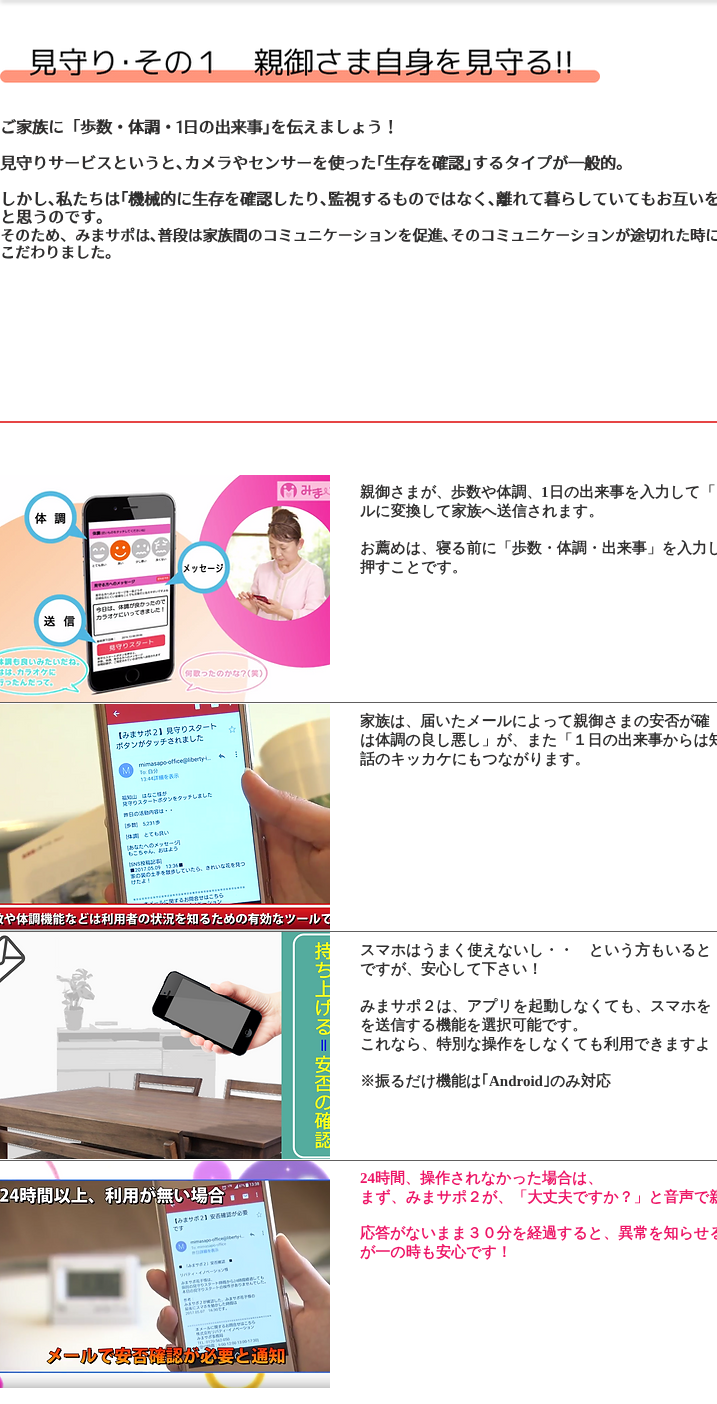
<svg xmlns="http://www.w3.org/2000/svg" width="717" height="1404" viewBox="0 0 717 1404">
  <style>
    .t1 { font: bold 16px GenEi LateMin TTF; fill: #2f2e2e; }
    .t2 { font: bold 15px GenEi LateMin TTF; fill: #2f2e2e; }
    .t3 { font: bold 15px WenQuanYi Zen Hei; fill: #2f2e2e; }
    .t4 { font: bold 15px Liberation Serif; fill: #2f2e2e; }
    .t5 { font: bold 15px IPAPGothic; fill: #2f2e2e; }
    .t6 { font: bold 15px Liberation Serif; fill: #ed1566; }
    .t7 { font: bold 15px WenQuanYi Zen Hei; fill: #ed1566; }
  </style>
  <rect width="100%" height="100%" fill="#fff"/>
  <rect x="0" y="0" width="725" height="1" fill="#000000b3" filter="blur(2.5px)"/>
  <image x="0" y="47" width="600" height="36" href="images/1.png"/>
  <text x="0" y="133" class="t1">ご家族に「歩数・体調・1日の出来事｣を伝えましょう！</text>
  <text x="0" y="169" class="t1">見守りサービスというと､カメラやセンサーを使った｢生存を確認｣するタイプが一般的｡</text>
  <text x="0" y="205" class="t1">しかし､私たちは｢機械的に生存を確認したり､監視するものではなく､離れて暮らしていてもお互いを</text>
  <text x="0" y="223" class="t1">と思うのです｡</text>
  <text x="0" y="241" class="t2">そのため、みまサポは､普段は家族間のコミュニケーションを促進､そのコミュニケーションが途切れた時に</text>
  <text x="0" y="258" class="t2">こだわりました｡</text>
  <rect x="0" y="421" width="717" height="2" fill="#e64545"/>
  <image x="0" y="475" width="330" height="227" href="images/2.png"/>
  <text x="360" y="497" class="t3">親御さまが、歩数や体調、</text>
  <text x="541" y="497" class="t4">1</text>
  <text x="549" y="497" class="t3">日の出来事を入力して「</text>
  <text x="360" y="516" class="t3">ルに変換して家族へ送信されます。</text>
  <text x="360" y="553" class="t3">お薦めは、寝る前に「歩数・体調・出来事」を入力し</text>
  <text x="360" y="572" class="t3">押すことです。</text>
  <rect x="0" y="702" width="717" height="1" fill="#605e5e"/>
  <image x="0" y="704" width="330" height="227" href="images/3.png"/>
  <text x="360" y="726" class="t3">家族は、届いたメールによって親御さまの安否が確</text>
  <text x="360" y="745" class="t3">は体調の良し悪し」が、また「１日の出来事からは知</text>
  <text x="360" y="764" class="t3">話のキッカケにもつながります。</text>
  <rect x="0" y="931" width="717" height="1" fill="#605e5e"/>
  <image x="0" y="932" width="330" height="227" href="images/4.png"/>
  <text x="360" y="955" class="t3">スマホはうまく使えないし・・　という方もいると</text>
  <text x="360" y="974" class="t3">ですが、安心して下さい！</text>
  <text x="360" y="1011" class="t3">みまサポ２は、アプリを起動しなくても、スマホを</text>
  <text x="360" y="1030" class="t3">を送信する機能を選択可能です。</text>
  <text x="360" y="1049" class="t3">これなら、特別な操作をしなくても利用できますよ</text>
  <text x="360" y="1086" class="t3">※振るだけ機能は</text>
  <text x="481" y="1086" class="t5">｢</text>
  <text x="489" y="1086" class="t4">Android</text>
  <text x="543" y="1086" class="t5">｣</text>
  <text x="550" y="1086" class="t3">のみ対応</text>
  <rect x="0" y="1160" width="717" height="1" fill="#605e5e"/>
  <image x="0" y="1161" width="330" height="227" href="images/5.png"/>
  <text x="360" y="1183" class="t6">24</text>
  <text x="375" y="1183" class="t7">時間、操作されなかった場合は、</text>
  <text x="360" y="1202" class="t7">まず、みまサポ２が、「大丈夫ですか？」と音声で親</text>
  <text x="360" y="1238" class="t7">応答がないまま３０分を経過すると、異常を知らせる</text>
  <text x="360" y="1257" class="t7">が一の時も安心です！</text>
</svg>
